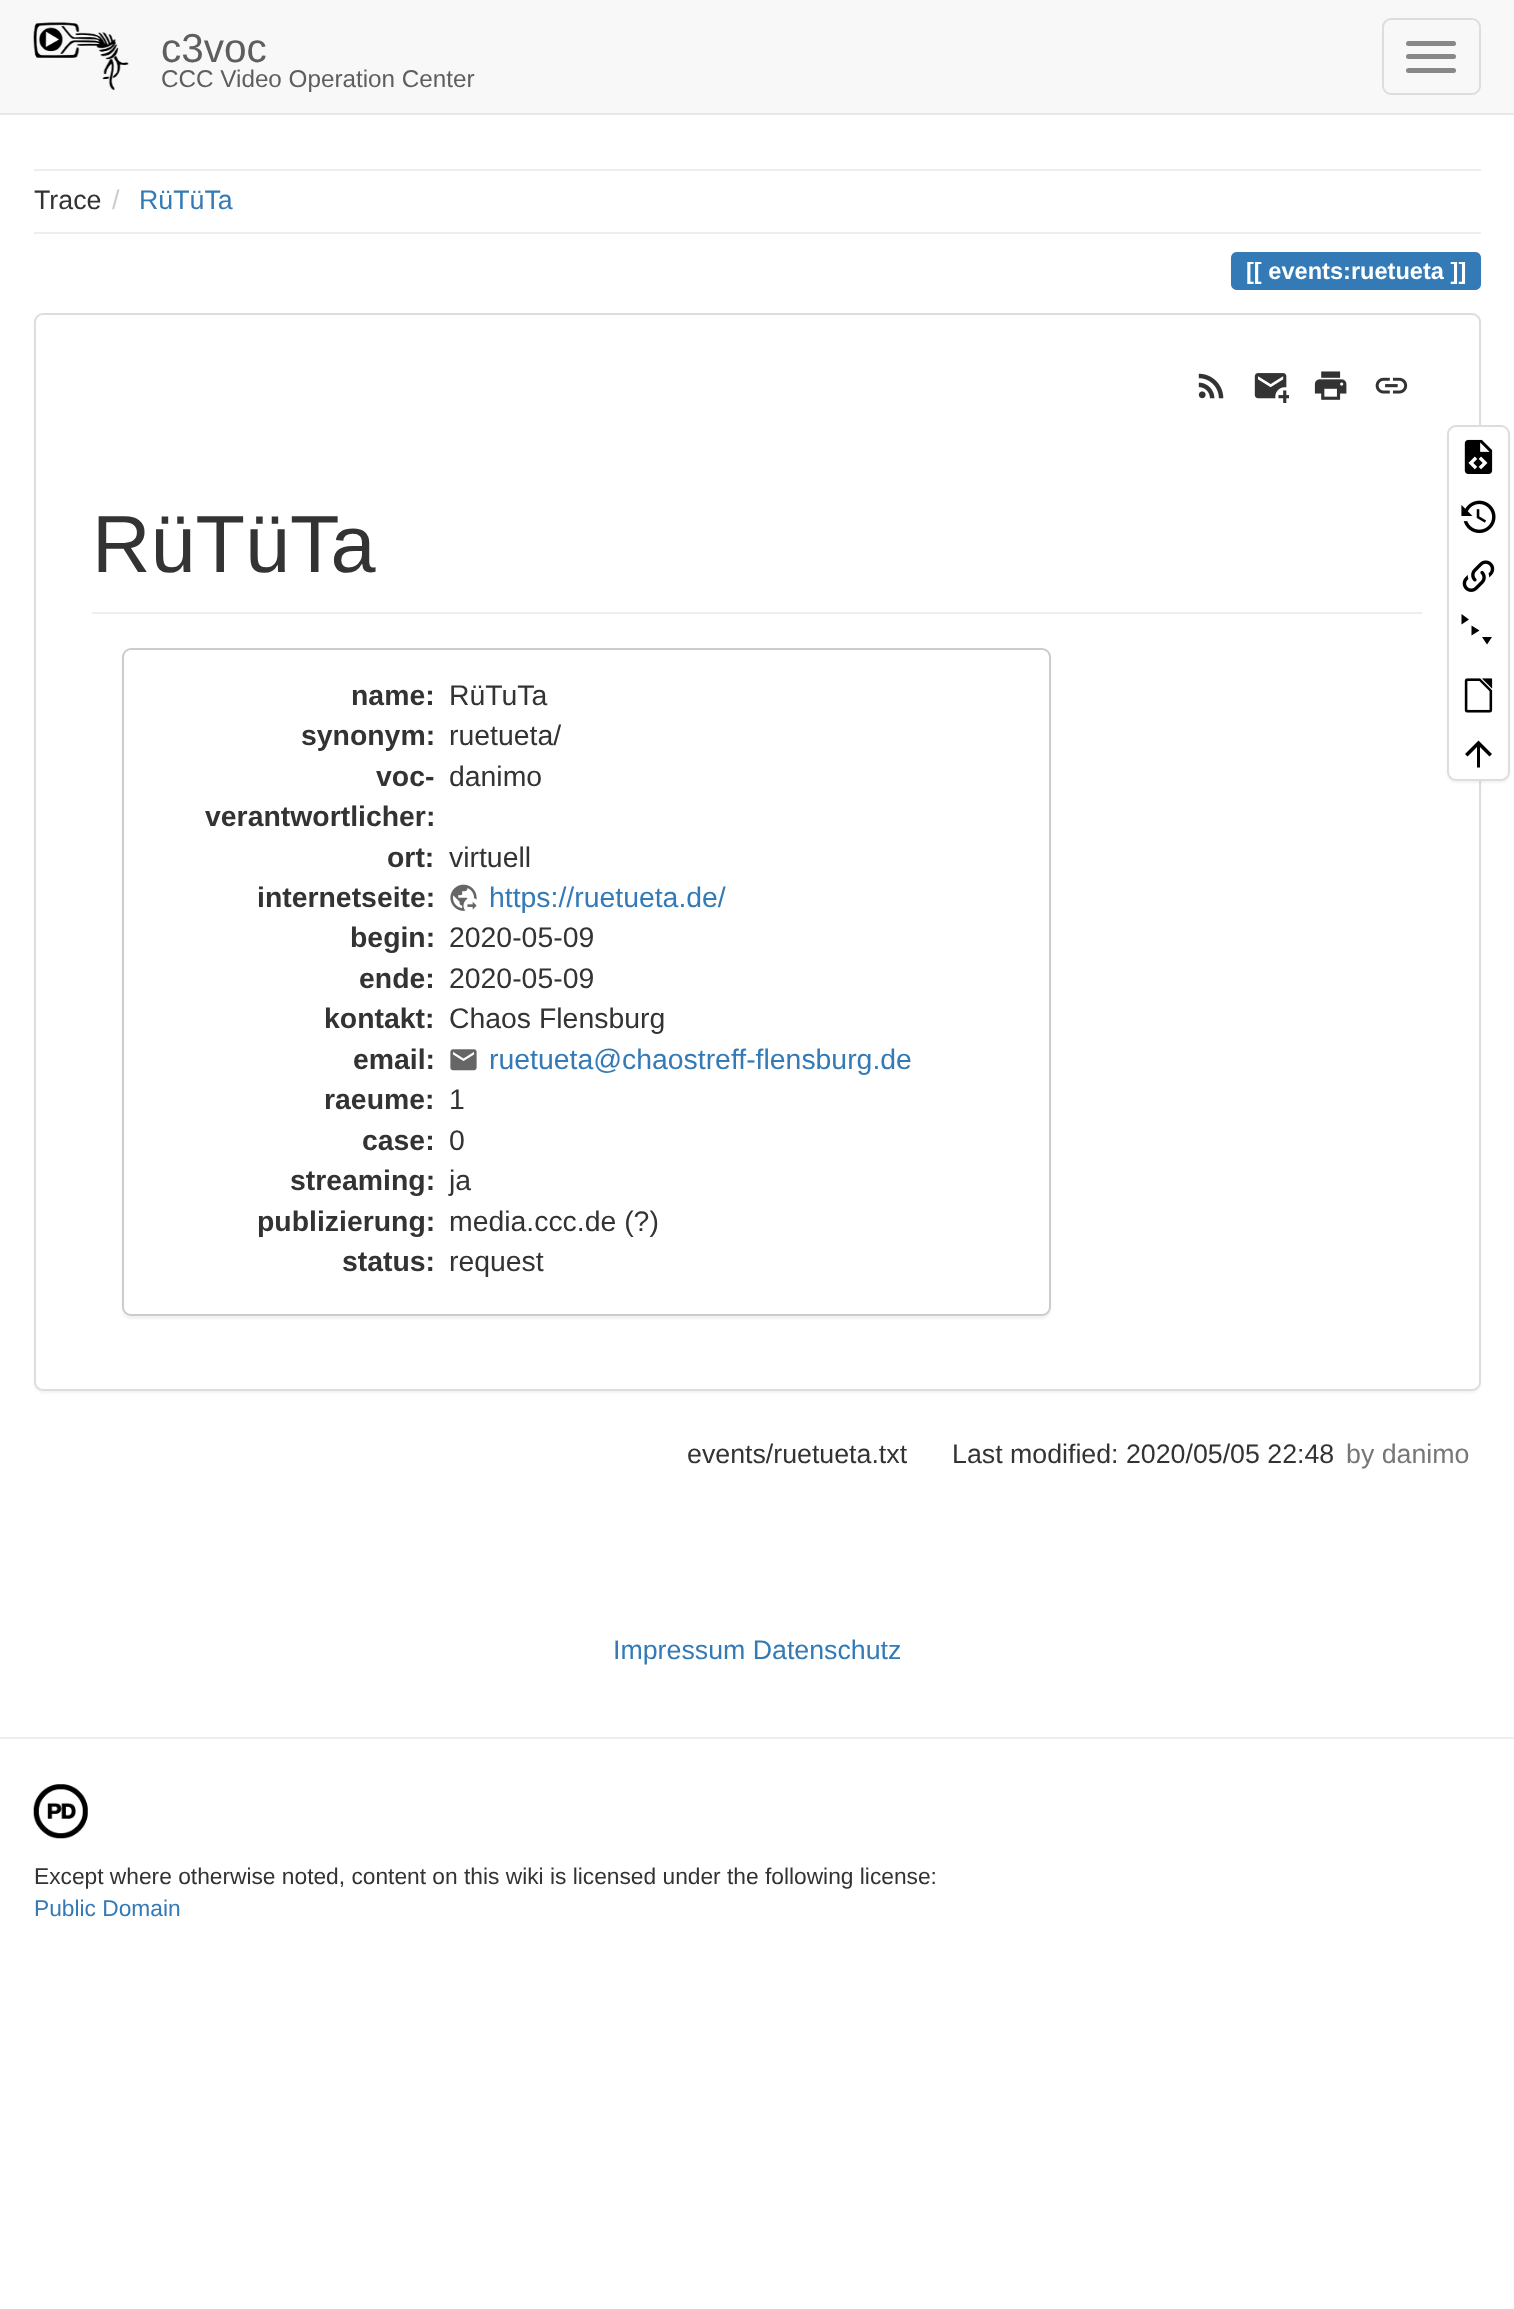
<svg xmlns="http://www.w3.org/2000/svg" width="1514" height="2309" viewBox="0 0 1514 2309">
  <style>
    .t1 { font: 40.5px Liberation Sans; fill: #5e5e5e; }
    .t2 { font: 24.25px Liberation Sans; fill: #5e5e5e; }
    .t3 { font: 26.75px Liberation Sans; fill: #333; }
    .t4 { font: 26.75px Liberation Sans; fill: #ccc; }
    .t5 { font: 26.75px Liberation Sans; fill: #337ab7; }
    .t6 { font: bold 23.6px Liberation Sans; fill: #fff; }
    .t7 { font: 81px Liberation Sans; fill: #333; }
    .t8 { font: bold 28.4px Liberation Sans; fill: #333; }
    .t9 { font: 28.4px Liberation Sans; fill: #333; }
    .t10 { font: 28.4px Liberation Sans; fill: #337ab7; }
    .t11 { font: 26.75px Liberation Sans; fill: #777; }
    .t12 { font: 22.75px Liberation Sans; fill: #333; }
    .t13 { font: 22.75px Liberation Sans; fill: #337ab7; }
  </style>
  <rect width="100%" height="100%" fill="#fff"/>
  <rect x="0" y="0" width="1514" height="113" fill="#f8f8f8"/>
  <rect x="0" y="113" width="1514" height="2" fill="#e7e7e7"/>
  <image x="33" y="22" width="96" height="68" href="images/1.png"/>
  <text x="161" y="62" class="t1">c3voc</text>
  <text x="161" y="87" class="t2">CCC Video Operation Center</text>
  <rect x="1383" y="19" width="97" height="75" rx="8" fill="none" stroke="#ddd" stroke-width="2"/>
  <rect x="1406" y="41" width="50" height="5" rx="2.5" fill="#888"/>
  <rect x="1406" y="54" width="50" height="5" rx="2.5" fill="#888"/>
  <rect x="1406" y="68" width="50" height="5" rx="2.5" fill="#888"/>
  <rect x="34" y="169" width="1447" height="2" fill="#eee"/>
  <text x="34" y="209" class="t3">Trace</text>
  <text x="112" y="209" class="t4">/</text>
  <text x="139" y="209" class="t5">RüTüTa</text>
  <rect x="34" y="232" width="1447" height="2" fill="#eee"/>
  <path d="M1237 252H1269V290H1237C1233.5 290 1231 287.5 1231 284V258C1231 254.5 1233.5 252 1237 252Z" fill="#337ab7"/>
  <rect x="1269" y="252" width="176" height="38" fill="#337ab7"/>
  <path d="M1445 252H1475C1478.5 252 1481 254.5 1481 258V284C1481 287.5 1478.5 290 1475 290H1445Z" fill="#337ab7"/>
  <text x="1246" y="279" class="t6">[[ events:ruetueta ]]</text>
  <rect x="34" y="315" width="1447" height="1078" rx="9" fill="#0000000d" filter="blur(1px)"/>
  <rect x="35" y="314" width="1445" height="1076" rx="8" fill="#fff" stroke="#ddd" stroke-width="2"/>
  <image x="1198" y="373" width="26" height="26" href="images/2.png"/>
  <image x="1254" y="373" width="35" height="30" href="images/3.png"/>
  <image x="1314" y="371" width="33" height="29" href="images/4.png"/>
  <image x="1375" y="377" width="33" height="17" href="images/5.png"/>
  <rect x="92" y="612" width="1330" height="2" fill="#eee"/>
  <text x="92" y="572" class="t7">RüTüTa</text>
  <rect x="122" y="650" width="929" height="669" rx="9" fill="#0000000d" filter="blur(1px)"/>
  <rect x="123" y="649" width="927" height="666" rx="8" fill="#fff" stroke="#ccc" stroke-width="2"/>
  <text x="351" y="705" class="t8">name:</text>
  <text x="449" y="705" class="t9">RüTuTa</text>
  <text x="301" y="745" class="t8">synonym:</text>
  <text x="449" y="745" class="t9">ruetueta/</text>
  <text x="376" y="786" class="t8">voc-</text>
  <text x="205" y="826" class="t8">verantwortlicher:</text>
  <text x="449" y="786" class="t9">danimo</text>
  <text x="387" y="867" class="t8">ort:</text>
  <text x="449" y="867" class="t9">virtuell</text>
  <text x="257" y="907" class="t8">internetseite:</text>
  <image x="450" y="884" width="27" height="27" href="images/6.png"/>
  <text x="489" y="907" class="t10">https://ruetueta.de/</text>
  <text x="350" y="947" class="t8">begin:</text>
  <text x="449" y="947" class="t9">2020-05-09</text>
  <text x="359" y="988" class="t8">ende:</text>
  <text x="449" y="988" class="t9">2020-05-09</text>
  <text x="324" y="1028" class="t8">kontakt:</text>
  <text x="449" y="1028" class="t9">Chaos Flensburg</text>
  <text x="353" y="1069" class="t8">email:</text>
  <image x="450" y="1049" width="27" height="22" href="images/7.png"/>
  <text x="489" y="1069" class="t10">ruetueta@chaostreff-flensburg.de</text>
  <text x="324" y="1109" class="t8">raeume:</text>
  <text x="449" y="1109" class="t9">1</text>
  <text x="362" y="1150" class="t8">case:</text>
  <text x="449" y="1150" class="t9">0</text>
  <text x="290" y="1190" class="t8">streaming:</text>
  <text x="449" y="1190" class="t9">ja</text>
  <text x="257" y="1231" class="t8">publizierung:</text>
  <text x="449" y="1231" class="t9">media.ccc.de (?)</text>
  <text x="342" y="1271" class="t8">status:</text>
  <text x="449" y="1271" class="t9">request</text>
  <rect x="1447" y="428" width="63" height="355" rx="9" fill="#0000000d" filter="blur(1px)"/>
  <rect x="1448" y="426" width="61" height="354" rx="8" fill="#fff" stroke="#ddd" stroke-width="2"/>
  <image x="1464" y="439" width="29" height="35" href="images/8.png"/>
  <image x="1461" y="500" width="35" height="34" href="images/9.png"/>
  <image x="1462" y="560" width="33" height="32" href="images/10.png"/>
  <path d="M1461.5 614L1469 619.5L1461.5 624.5ZM1471.5 625.5L1479.5 630.5L1471.5 635.5ZM1482 637H1492L1487 644.5Z" fill="#000"/>
  <image x="1464" y="678" width="29" height="35" href="images/11.png"/>
  <path d="M1480 767.5H1477V747L1467.5 756.5L1465 754L1478.5 740.5L1492 754L1489.5 756.5L1480 747Z" fill="#000"/>
  <text x="687" y="1463" class="t3">events/ruetueta.txt</text>
  <text x="952" y="1463" class="t3">Last modified: 2020/05/05 22:48</text>
  <text x="1346" y="1463" class="t11">by danimo</text>
  <text x="613" y="1659" class="t5">Impressum Datenschutz</text>
  <rect x="0" y="1737" width="1514" height="2" fill="#eee"/>
  <image x="33" y="1784" width="55" height="55" href="images/12.png"/>
  <text x="34" y="1884" class="t12">Except where otherwise noted, content on this wiki is licensed under the following license:</text>
  <text x="34" y="1916" class="t13">Public Domain</text>
</svg>
